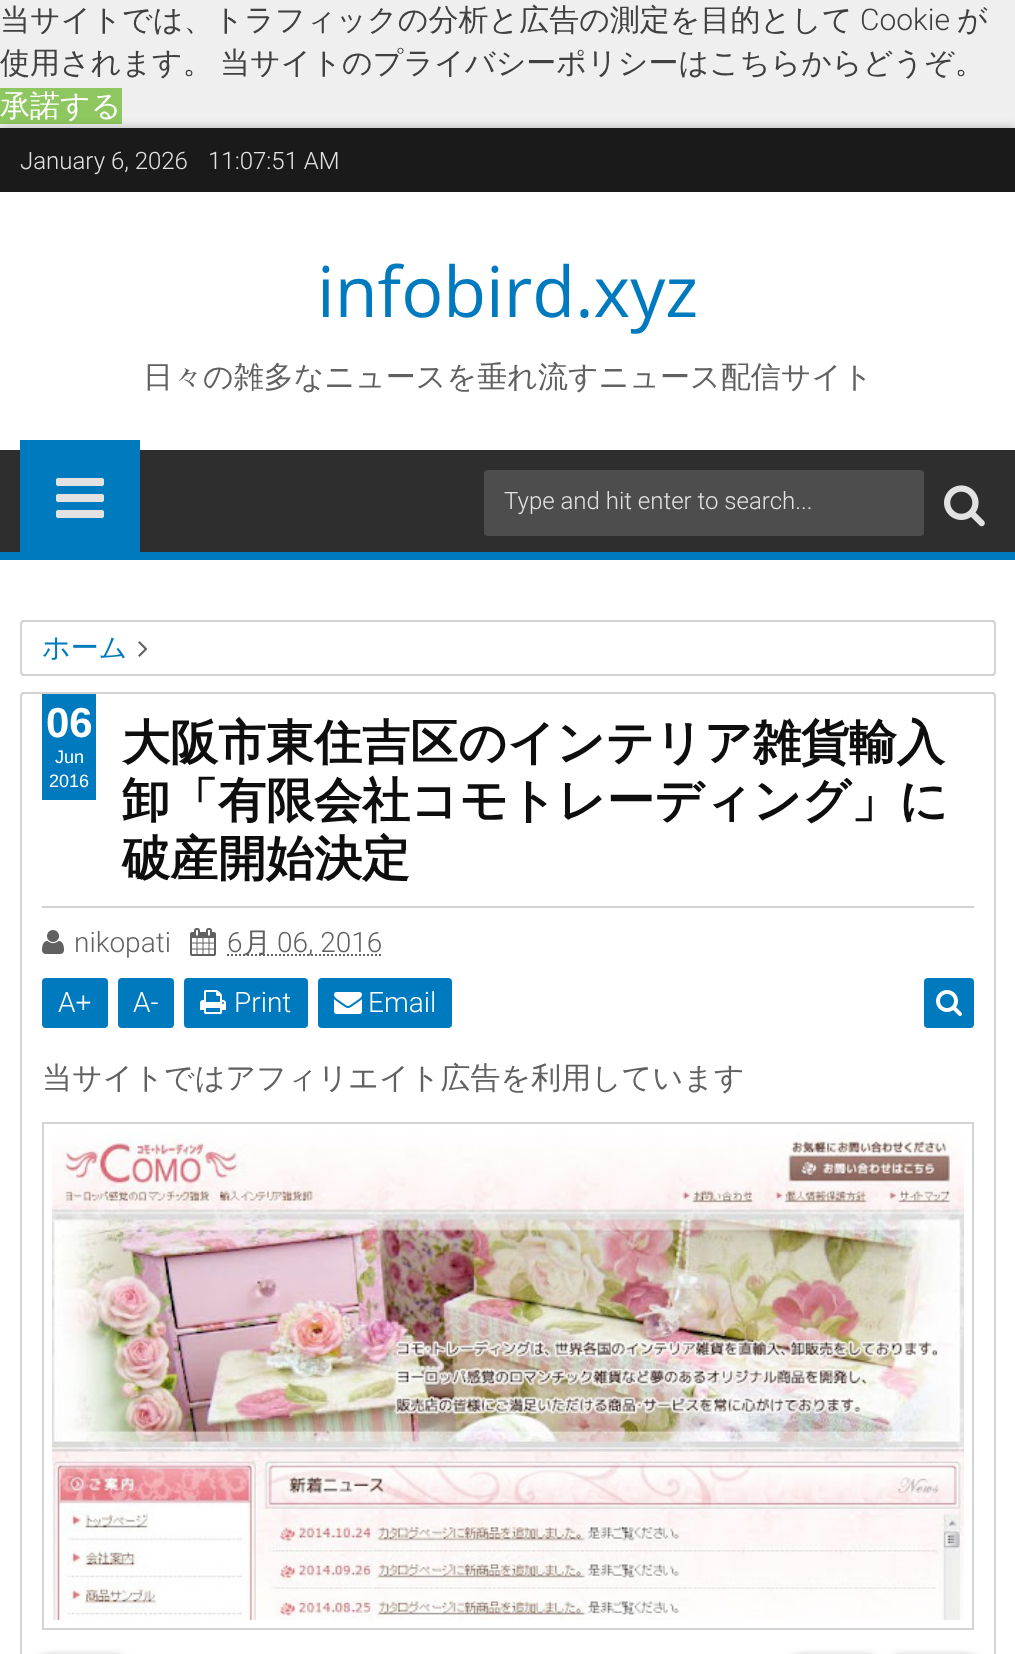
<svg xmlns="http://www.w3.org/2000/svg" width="1015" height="1654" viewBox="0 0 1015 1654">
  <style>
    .t1 { font: 500 30px WenQuanYi Zen Hei; fill: #404040; }
    .t2 { font: 300 30px Roboto; fill: #404040; }
    .t3 { font: 500 30px WenQuanYi Zen Hei; fill: #fff; }
    .t4 { font: 300 24px Roboto; fill: #e2e2e2; }
    .t5 { font: 70px Open Sans; fill: #007abe; }
    .t6 { font: 500 30px WenQuanYi Zen Hei; fill: #616161; }
    .t7 { font: 500 28px WenQuanYi Zen Hei; fill: #007abe; }
    .t8 { font: bold 42px Liberation Sans; fill: #fff; }
    .t9 { font: 18px Liberation Sans; fill: #fff; }
    .t10 { font: bold 48px WenQuanYi Zen Hei; fill: #0e0e0e; }
    .t11 { font: 300 28px Roboto; fill: #616161; }
    .t12 { font: 500 28px WenQuanYi Zen Hei; fill: #616161; }
    .t13 { font: 300 28px Roboto; fill: #fff; }
  </style>
  <rect width="100%" height="100%" fill="#efefef"/>
  <text x="0" y="30" class="t1">当サイトでは、トラフィックの分析と広告の測定を目的として</text>
  <text x="860" y="30" class="t2">Cookie</text>
  <text x="957" y="30" class="t1">が</text>
  <text x="0" y="73" class="t1">使用されます。</text>
  <text x="220" y="73" class="t1">当サイトのプライバシーポリシーはこちらからどうぞ。</text>
  <rect x="0" y="88" width="122" height="36" fill="#8ec760"/>
  <text x="0" y="116" class="t3">承諾する</text>
  <rect x="0" y="128" width="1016" height="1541" fill="#00000040" filter="blur(5px)"/>
  <rect x="0" y="192" width="1015" height="1462" fill="#fff"/>
  <rect x="0" y="128" width="1015" height="64" fill="#1a1a1a"/>
  <text x="20" y="169" class="t4">January 6, 2026</text>
  <text x="208" y="169" class="t4">11:07:51 AM</text>
  <text x="317" y="317" class="t5">infobird.xyz</text>
  <text x="143" y="387" class="t6">日々の雑多なニュースを垂れ流すニュース配信サイト</text>
  <rect x="0" y="450" width="1015" height="102" fill="#2e2e2e"/>
  <rect x="0" y="552" width="1015" height="8" fill="#007abe"/>
  <rect x="20" y="440" width="120" height="112" fill="#007abe"/>
  <image x="56" y="478" width="48" height="40" href="images/1.png"/>
  <rect x="484" y="470" width="440" height="66" rx="4" fill="#4d4d4d"/>
  <text x="504" y="509" class="t4">Type and hit enter to search...</text>
  <image x="944" y="485" width="41" height="42" href="images/2.png"/>
  <rect x="21" y="621" width="974" height="54" rx="3" fill="none" stroke="#d3d3d3" stroke-width="2"/>
  <text x="42" y="657" class="t7">ホーム</text>
  <image x="138" y="641" width="10" height="16" href="images/3.png"/>
  <rect x="21" y="693" width="974" height="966" rx="3" fill="none" stroke="#d3d3d3" stroke-width="2"/>
  <rect x="42" y="694" width="54" height="106" fill="#007abe"/>
  <text x="46" y="737" class="t8">06</text>
  <text x="55" y="763" class="t9">Jun</text>
  <text x="49" y="787" class="t9">2016</text>
  <rect x="42" y="906" width="932" height="2" fill="#d3d3d3"/>
  <text x="122" y="759" class="t10">大阪市東住吉区のインテリア雑貨輸入</text>
  <text x="122" y="817" class="t10">卸「有限会社コモトレーディング」に</text>
  <text x="122" y="875" class="t10">破産開始決定</text>
  <image x="42" y="930" width="22" height="24" href="images/4.png"/>
  <text x="74" y="952" class="t11">nikopati</text>
  <image x="190" y="928" width="26" height="28" href="images/5.png"/>
  <text x="227" y="952" class="t11">6</text>
  <path d="M227 955H382.5" fill="none" stroke="#616161" stroke-width="2" stroke-dasharray="2 2"/>
  <text x="243" y="952" class="t12">月</text>
  <text x="277" y="952" class="t11">06, 2016</text>
  <rect x="42" y="978" width="66" height="50" rx="4" fill="#007abe"/>
  <text x="58" y="1012" class="t13">A+</text>
  <rect x="118" y="978" width="56" height="50" rx="4" fill="#007abe"/>
  <text x="133" y="1012" class="t13">A-</text>
  <rect x="184" y="978" width="124" height="50" rx="4" fill="#007abe"/>
  <image x="200" y="990" width="26" height="24" href="images/6.png"/>
  <text x="234" y="1012" class="t13">Print</text>
  <rect x="318" y="978" width="134" height="50" rx="4" fill="#007abe"/>
  <image x="334" y="992" width="28" height="22" href="images/7.png"/>
  <text x="368" y="1012" class="t13">Email</text>
  <rect x="924" y="978" width="50" height="50" rx="4" fill="#007abe"/>
  <image x="936" y="990" width="26" height="26" href="images/8.png"/>
  <text x="42" y="1088" class="t6">当サイトではアフィリエイト広告を利用しています</text>
  <rect x="43" y="1123" width="930" height="506" fill="none" stroke="#d3d3d3" stroke-width="2"/>
  <image x="52" y="1132" width="912" height="488" href="images/9.png"/>
  <rect x="792" y="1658" width="84" height="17" rx="6" fill="#00000080" filter="blur(5px)"/>
  <rect x="892" y="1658" width="84" height="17" rx="6" fill="#00000080" filter="blur(5px)"/>
  <rect x="40" y="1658" width="84" height="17" rx="6" fill="#00000080" filter="blur(5px)"/>
</svg>
